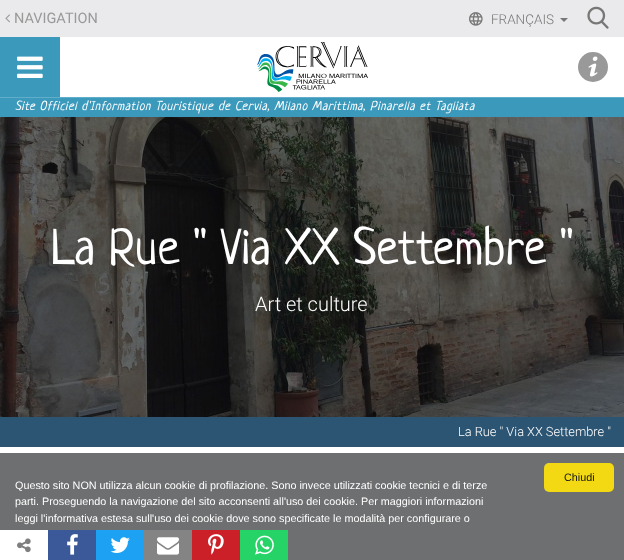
<svg xmlns="http://www.w3.org/2000/svg" width="624" height="560" viewBox="0 0 624 560">
  <style>
    .t1 { font: 14.5px Roboto; fill: #999; }
    .t2 { font: 300 13.5px Roboto; fill: #777; }
    .t3 { font: italic 12.8px Neucha; letter-spacing: 0.65px; fill: #fff; }
    .t4 { font: 50.25px Neucha; fill: #fff; }
    .t5 { font: 300 20px Roboto; fill: #fff; }
    .t6 { font: 300 12.8px Roboto; fill: #fff; }
    .t7 { font: 10.8px Liberation Sans; fill: #141414; }
    .t8 { font: 10.8px Liberation Sans; fill: #fff; }
  </style>
  <rect width="100%" height="100%" fill="#fff"/>
  <rect x="0" y="453" width="624" height="107" fill="#6e6f71"/>
  <rect x="0" y="0" width="624" height="37" fill="#eaeaec"/>
  <image x="5" y="14" width="5" height="9" href="images/1.png"/>
  <text x="14" y="23" class="t1">NAVIGATION</text>
  <image x="469" y="12" width="14" height="14" href="images/2.png"/>
  <text x="491" y="24" class="t2">FRANÇAIS</text>
  <path d="M560 18H568L564 22Z" fill="#777"/>
  <image x="587" y="6" width="22" height="23" href="images/3.png"/>
  <rect x="0" y="37" width="60" height="60" fill="#3b99bc"/>
  <image x="17" y="56" width="26" height="22" href="images/4.png"/>
  <image x="257" y="42" width="111" height="50" href="images/5.png"/>
  <circle cx="593" cy="67" r="15" fill="#999"/>
  <image x="588" y="56" width="10" height="21" href="images/6.png"/>
  <rect x="0" y="98" width="624" height="19" fill="#3b99bc"/>
  <rect x="0" y="97" width="624" height="1" fill="#62adc9"/>
  <text x="15" y="110" class="t3">Site Officiel d'Information Touristique de Cervia, Milano Marittima, Pinarella et Tagliata</text>
  <image x="0" y="117" width="624" height="300" href="images/7.png"/>
  <text x="51" y="264" class="t4">La Rue " Via XX Settembre "</text>
  <text x="255" y="311" class="t5">Art et culture</text>
  <rect x="0" y="417" width="624" height="30" fill="#2c5573"/>
  <text x="458" y="436" class="t6">La Rue " Via XX Settembre "</text>
  <rect x="544" y="463" width="70" height="29" rx="5" fill="#f2d914"/>
  <text x="564" y="481" class="t7">Chiudi</text>
  <text x="15" y="489" class="t8">Questo sito NON utilizza alcun cookie di profilazione. Sono invece utilizzati cookie tecnici e di terze</text>
  <text x="15" y="505" class="t8">parti. Proseguendo la navigazione del sito acconsenti all'uso dei cookie. Per maggiori informazioni</text>
  <text x="15" y="522" class="t8">leggi l'informativa estesa sull'uso dei cookie dove sono specificate le modalità per configurare o</text>
  <rect x="0" y="530" width="48" height="30" fill="#fff"/>
  <image x="17" y="538" width="14" height="15" href="images/8.png"/>
  <rect x="48" y="530" width="48" height="30" fill="#3b5998"/>
  <image x="67" y="534" width="11" height="21" href="images/9.png"/>
  <rect x="96" y="530" width="48" height="30" fill="#1da1f2"/>
  <image x="110" y="537" width="20" height="16" href="images/10.png"/>
  <rect x="144" y="530" width="48" height="30" fill="#848484"/>
  <image x="157" y="537" width="22" height="18" href="images/11.png"/>
  <rect x="192" y="530" width="48" height="30" fill="#cb2027"/>
  <image x="208" y="534" width="16" height="21" href="images/12.png"/>
  <rect x="240" y="530" width="48" height="30" fill="#25d366"/>
  <image x="255" y="535" width="19" height="20" href="images/13.png"/>
</svg>
